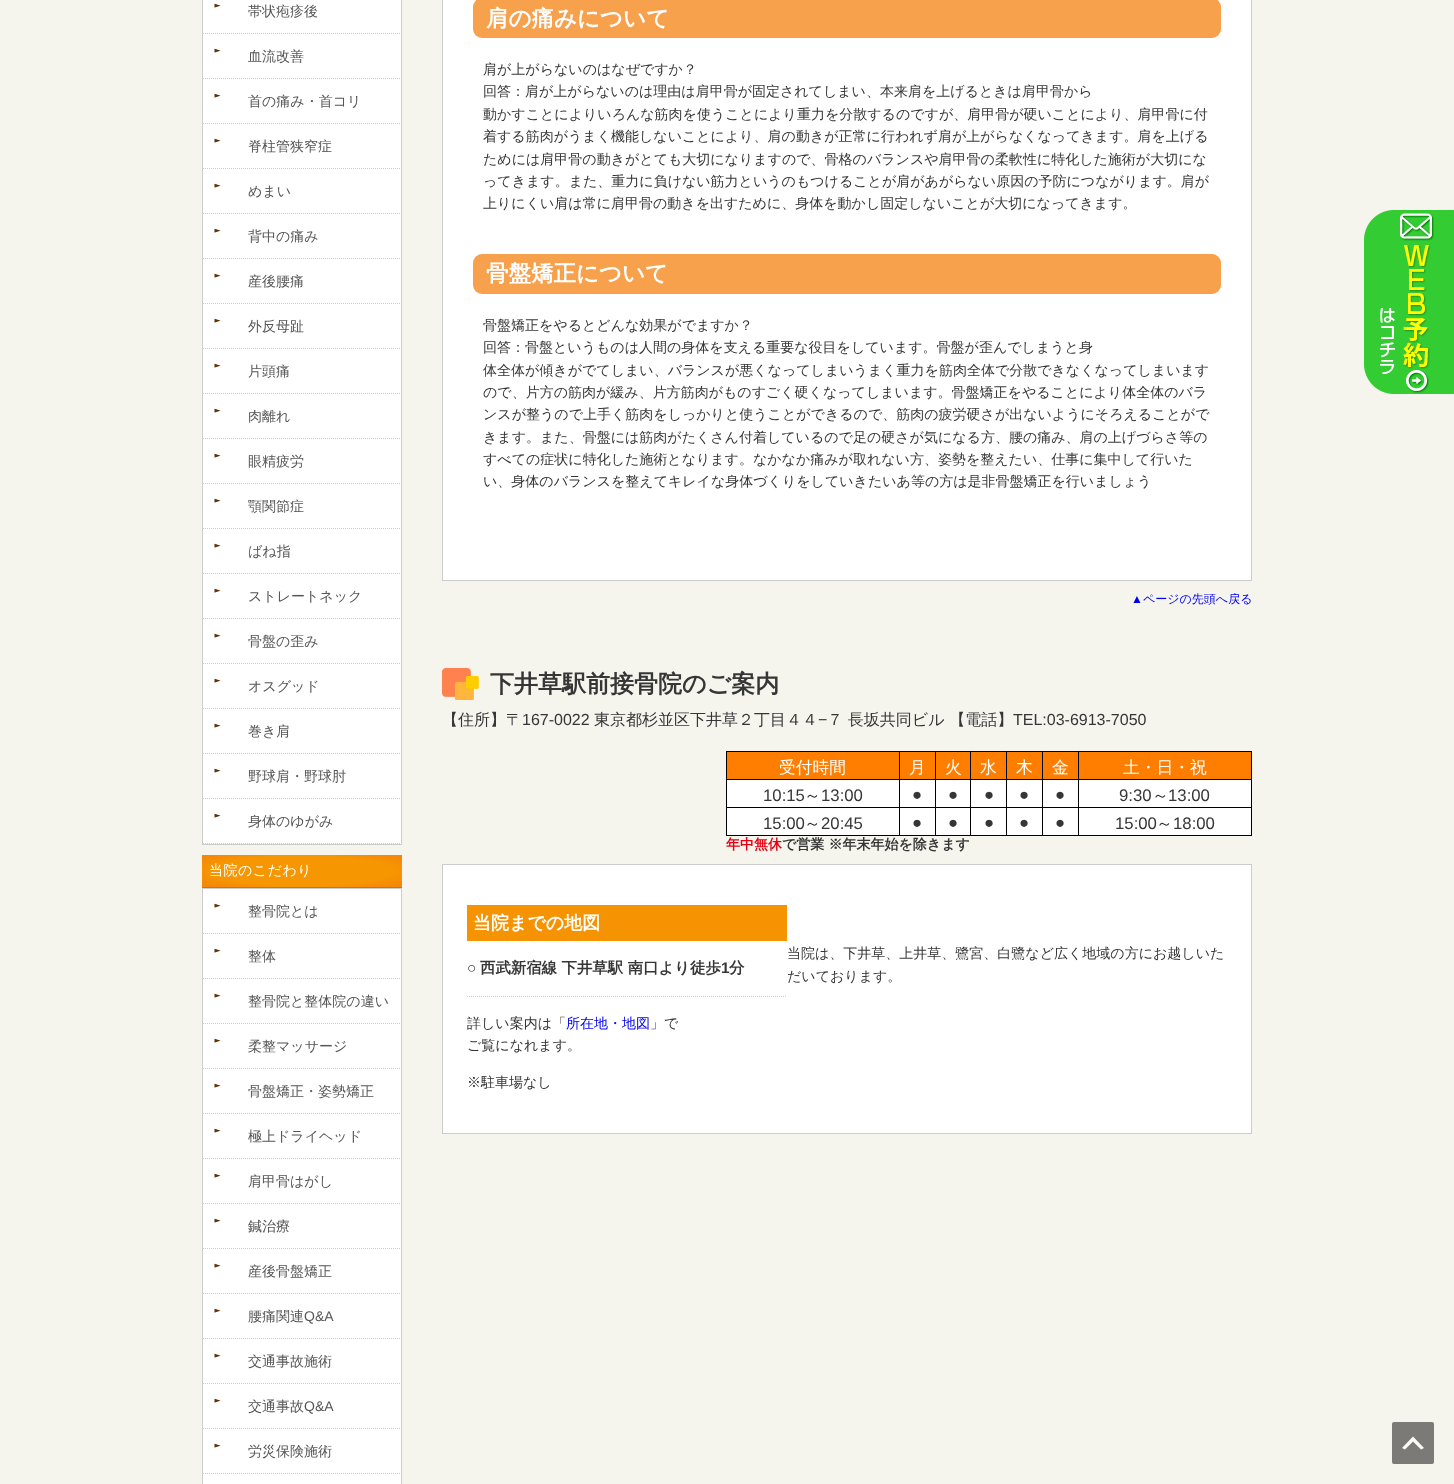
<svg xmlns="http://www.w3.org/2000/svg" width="1454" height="1484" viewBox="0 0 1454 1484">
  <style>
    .t1 { font: 500 14px WenQuanYi Zen Hei; fill: #555; }
    .t2 { font: 500 14px WenQuanYi Zen Hei; letter-spacing: 0.5px; fill: #fff; }
    .t3 { font: 14px Liberation Sans; fill: #555; }
    .t4 { font: bold 22.5px WenQuanYi Zen Hei; fill: #fff; }
    .t5 { font: 500 14px WenQuanYi Zen Hei; fill: #363636; }
    .t6 { font: 12px Liberation Sans; fill: #00e; }
    .t7 { font: 500 12px WenQuanYi Zen Hei; fill: #00e; }
    .t8 { font: bold 24px WenQuanYi Zen Hei; fill: #363636; }
    .t9 { font: 500 16px WenQuanYi Zen Hei; fill: #363636; }
    .t10 { font: 16px Liberation Sans; fill: #363636; }
    .t11 { font: 500 16.75px WenQuanYi Zen Hei; fill: #fff; }
    .t12 { font: 16.75px Liberation Sans; fill: #363636; }
    .t13 { font: 500 16.75px WenQuanYi Zen Hei; fill: #363636; }
    .t14 { font: bold 14px WenQuanYi Zen Hei; fill: #e60012; }
    .t15 { font: bold 14px WenQuanYi Zen Hei; fill: #363636; }
    .t16 { font: bold 18px WenQuanYi Zen Hei; fill: #fff; }
    .t17 { font: bold 15.4px Liberation Sans; fill: #363636; }
    .t18 { font: bold 15.4px WenQuanYi Zen Hei; fill: #363636; }
    .t19 { font: 500 14px WenQuanYi Zen Hei; fill: #00e; }
  </style>
  <defs>
    <radialGradient id="g1" gradientUnits="userSpaceOnUse" cx="0" cy="0" r="1" gradientTransform="matrix(141 0 0 23 302 871)"><stop offset="0.65" stop-color="#f69600"/><stop offset="0.9" stop-color="#f48809"/></radialGradient>
  </defs>
  <rect width="100%" height="100%" fill="#f5f4ed"/>
  <rect x="202.5" y="-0.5" width="199" height="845" fill="#fff" stroke="#ccc"/>
  <image x="214" y="3" width="7" height="5" href="images/1.png"/>
  <path d="M203 33.5H401" fill="none" stroke="#ccc" stroke-dasharray="1 1"/>
  <text x="248" y="16" class="t1">帯状疱疹後</text>
  <image x="214" y="48" width="7" height="5" href="images/1.png"/>
  <path d="M203 78.5H401" fill="none" stroke="#ccc" stroke-dasharray="1 1"/>
  <text x="248" y="61" class="t1">血流改善</text>
  <image x="214" y="93" width="7" height="5" href="images/1.png"/>
  <path d="M203 123.5H401" fill="none" stroke="#ccc" stroke-dasharray="1 1"/>
  <text x="248" y="106" class="t1">首の痛み・首コリ</text>
  <image x="214" y="138" width="7" height="5" href="images/1.png"/>
  <path d="M203 168.5H401" fill="none" stroke="#ccc" stroke-dasharray="1 1"/>
  <text x="248" y="151" class="t1">脊柱管狭窄症</text>
  <image x="214" y="183" width="7" height="5" href="images/1.png"/>
  <path d="M203 213.5H401" fill="none" stroke="#ccc" stroke-dasharray="1 1"/>
  <text x="248" y="196" class="t1">めまい</text>
  <image x="214" y="228" width="7" height="5" href="images/1.png"/>
  <path d="M203 258.5H401" fill="none" stroke="#ccc" stroke-dasharray="1 1"/>
  <text x="248" y="241" class="t1">背中の痛み</text>
  <image x="214" y="273" width="7" height="5" href="images/1.png"/>
  <path d="M203 303.5H401" fill="none" stroke="#ccc" stroke-dasharray="1 1"/>
  <text x="248" y="286" class="t1">産後腰痛</text>
  <image x="214" y="318" width="7" height="5" href="images/1.png"/>
  <path d="M203 348.5H401" fill="none" stroke="#ccc" stroke-dasharray="1 1"/>
  <text x="248" y="331" class="t1">外反母趾</text>
  <image x="214" y="363" width="7" height="5" href="images/1.png"/>
  <path d="M203 393.5H401" fill="none" stroke="#ccc" stroke-dasharray="1 1"/>
  <text x="248" y="376" class="t1">片頭痛</text>
  <image x="214" y="408" width="7" height="5" href="images/1.png"/>
  <path d="M203 438.5H401" fill="none" stroke="#ccc" stroke-dasharray="1 1"/>
  <text x="248" y="421" class="t1">肉離れ</text>
  <image x="214" y="453" width="7" height="5" href="images/1.png"/>
  <path d="M203 483.5H401" fill="none" stroke="#ccc" stroke-dasharray="1 1"/>
  <text x="248" y="466" class="t1">眼精疲労</text>
  <image x="214" y="498" width="7" height="5" href="images/1.png"/>
  <path d="M203 528.5H401" fill="none" stroke="#ccc" stroke-dasharray="1 1"/>
  <text x="248" y="511" class="t1">顎関節症</text>
  <image x="214" y="543" width="7" height="5" href="images/1.png"/>
  <path d="M203 573.5H401" fill="none" stroke="#ccc" stroke-dasharray="1 1"/>
  <text x="248" y="556" class="t1">ばね指</text>
  <image x="214" y="588" width="7" height="5" href="images/1.png"/>
  <path d="M203 618.5H401" fill="none" stroke="#ccc" stroke-dasharray="1 1"/>
  <text x="248" y="601" class="t1">ストレートネック</text>
  <image x="214" y="633" width="7" height="5" href="images/1.png"/>
  <path d="M203 663.5H401" fill="none" stroke="#ccc" stroke-dasharray="1 1"/>
  <text x="248" y="646" class="t1">骨盤の歪み</text>
  <image x="214" y="678" width="7" height="5" href="images/1.png"/>
  <path d="M203 708.5H401" fill="none" stroke="#ccc" stroke-dasharray="1 1"/>
  <text x="248" y="691" class="t1">オスグッド</text>
  <image x="214" y="723" width="7" height="5" href="images/1.png"/>
  <path d="M203 753.5H401" fill="none" stroke="#ccc" stroke-dasharray="1 1"/>
  <text x="248" y="736" class="t1">巻き肩</text>
  <image x="214" y="768" width="7" height="5" href="images/1.png"/>
  <path d="M203 798.5H401" fill="none" stroke="#ccc" stroke-dasharray="1 1"/>
  <text x="248" y="781" class="t1">野球肩・野球肘</text>
  <image x="214" y="813" width="7" height="5" href="images/1.png"/>
  <path d="M203 843.5H401" fill="none" stroke="#ccc" stroke-dasharray="1 1"/>
  <text x="248" y="826" class="t1">身体のゆがみ</text>
  <rect x="202" y="855" width="200" height="32" fill="url(#g1)"/>
  <rect x="202" y="887" width="200" height="1" fill="#cf7319"/>
  <text x="209" y="875" class="t2">当院のこだわり</text>
  <rect x="202.5" y="888.5" width="199" height="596" fill="#fff" stroke="#ccc"/>
  <image x="214" y="903" width="7" height="5" href="images/1.png"/>
  <path d="M203 933.5H401" fill="none" stroke="#ccc" stroke-dasharray="1 1"/>
  <text x="248" y="916" class="t1">整骨院とは</text>
  <image x="214" y="948" width="7" height="5" href="images/1.png"/>
  <path d="M203 978.5H401" fill="none" stroke="#ccc" stroke-dasharray="1 1"/>
  <text x="248" y="961" class="t1">整体</text>
  <image x="214" y="993" width="7" height="5" href="images/1.png"/>
  <path d="M203 1023.5H401" fill="none" stroke="#ccc" stroke-dasharray="1 1"/>
  <text x="248" y="1006" class="t1">整骨院と整体院の違い</text>
  <image x="214" y="1038" width="7" height="5" href="images/1.png"/>
  <path d="M203 1068.5H401" fill="none" stroke="#ccc" stroke-dasharray="1 1"/>
  <text x="248" y="1051" class="t1">柔整マッサージ</text>
  <image x="214" y="1083" width="7" height="5" href="images/1.png"/>
  <path d="M203 1113.5H401" fill="none" stroke="#ccc" stroke-dasharray="1 1"/>
  <text x="248" y="1096" class="t1">骨盤矯正・姿勢矯正</text>
  <image x="214" y="1128" width="7" height="5" href="images/1.png"/>
  <path d="M203 1158.5H401" fill="none" stroke="#ccc" stroke-dasharray="1 1"/>
  <text x="248" y="1141" class="t1">極上ドライヘッド</text>
  <image x="214" y="1173" width="7" height="5" href="images/1.png"/>
  <path d="M203 1203.5H401" fill="none" stroke="#ccc" stroke-dasharray="1 1"/>
  <text x="248" y="1186" class="t1">肩甲骨はがし</text>
  <image x="214" y="1218" width="7" height="5" href="images/1.png"/>
  <path d="M203 1248.5H401" fill="none" stroke="#ccc" stroke-dasharray="1 1"/>
  <text x="248" y="1231" class="t1">鍼治療</text>
  <image x="214" y="1263" width="7" height="5" href="images/1.png"/>
  <path d="M203 1293.5H401" fill="none" stroke="#ccc" stroke-dasharray="1 1"/>
  <text x="248" y="1276" class="t1">産後骨盤矯正</text>
  <image x="214" y="1308" width="7" height="5" href="images/1.png"/>
  <path d="M203 1338.5H401" fill="none" stroke="#ccc" stroke-dasharray="1 1"/>
  <text x="248" y="1321" class="t1">腰痛関連</text>
  <text x="304" y="1321" class="t3">Q&amp;A</text>
  <image x="214" y="1353" width="7" height="5" href="images/1.png"/>
  <path d="M203 1383.5H401" fill="none" stroke="#ccc" stroke-dasharray="1 1"/>
  <text x="248" y="1366" class="t1">交通事故施術</text>
  <image x="214" y="1398" width="7" height="5" href="images/1.png"/>
  <path d="M203 1428.5H401" fill="none" stroke="#ccc" stroke-dasharray="1 1"/>
  <text x="248" y="1411" class="t1">交通事故</text>
  <text x="304" y="1411" class="t3">Q&amp;A</text>
  <image x="214" y="1443" width="7" height="5" href="images/1.png"/>
  <path d="M203 1473.5H401" fill="none" stroke="#ccc" stroke-dasharray="1 1"/>
  <text x="248" y="1456" class="t1">労災保険施術</text>
  <rect x="442.5" y="-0.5" width="809" height="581" fill="#fff" stroke="#ccc"/>
  <rect x="473" y="-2" width="748" height="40" rx="9" fill="#f7a14d"/>
  <text x="486" y="26" class="t4">肩の痛みについて</text>
  <text x="483" y="74" class="t5">肩が上がらないのはなぜですか？</text>
  <text x="483" y="96" class="t5">回答：肩が上がらないのは理由は肩甲骨が固定されてしまい、本来肩を上げるときは肩甲骨から</text>
  <text x="483" y="119" class="t5">動かすことによりいろんな筋肉を使うことにより重力を分散するのですが、肩甲骨が硬いことにより、肩甲骨に付</text>
  <text x="483" y="141" class="t5">着する筋肉がうまく機能しないことにより、肩の動きが正常に行われず肩が上がらなくなってきます。肩を上げる</text>
  <text x="483" y="164" class="t5">ためには肩甲骨の動きがとても大切になりますので、骨格のバランスや肩甲骨の柔軟性に特化した施術が大切にな</text>
  <text x="483" y="186" class="t5">ってきます。また、重力に負けない筋力というのもつけることが肩があがらない原因の予防につながります。肩が</text>
  <text x="483" y="208" class="t5">上りにくい肩は常に肩甲骨の動きを出すために、身体を動かし固定しないことが大切になってきます。</text>
  <rect x="473" y="254" width="748" height="40" rx="9" fill="#f7a14d"/>
  <text x="486" y="281" class="t4">骨盤矯正について</text>
  <text x="483" y="330" class="t5">骨盤矯正をやるとどんな効果がでますか？</text>
  <text x="483" y="352" class="t5">回答：骨盤というものは人間の身体を支える重要な役目をしています。骨盤が歪んでしまうと身</text>
  <text x="483" y="375" class="t5">体全体が傾きがでてしまい、バランスが悪くなってしまいうまく重力を筋肉全体で分散できなくなってしまいます</text>
  <text x="483" y="397" class="t5">ので、片方の筋肉が緩み、片方筋肉がものすごく硬くなってしまいます。骨盤矯正をやることにより体全体のバラ</text>
  <text x="483" y="419" class="t5">ンスが整うので上手く筋肉をしっかりと使うことができるので、筋肉の疲労硬さが出ないようにそろえることがで</text>
  <text x="483" y="442" class="t5">きます。また、骨盤には筋肉がたくさん付着しているので足の硬さが気になる方、腰の痛み、肩の上げづらさ等の</text>
  <text x="483" y="464" class="t5">すべての症状に特化した施術となります。なかなか痛みが取れない方、姿勢を整えたい、仕事に集中して行いた</text>
  <text x="483" y="486" class="t5">い、身体のバランスを整えてキレイな身体づくりをしていきたいあ等の方は是非骨盤矯正を行いましょう</text>
  <text x="1131" y="603" class="t6">▲</text>
  <text x="1143" y="603" class="t7">ページの先頭へ戻る</text>
  <image x="442" y="668" width="37" height="32" href="images/2.png"/>
  <text x="490" y="692" class="t8">下井草駅前接骨院のご案内</text>
  <text x="442" y="725" class="t9">【住所】〒</text>
  <text x="522" y="725" class="t10">167-0022</text>
  <text x="594" y="725" class="t9">東京都杉並区下井草２丁目４４</text>
  <text x="818" y="725" class="t10">−</text>
  <text x="827" y="725" class="t9">７ 長坂共同ビル 【電話】</text>
  <text x="1013" y="725" class="t10">TEL:03-6913-7050</text>
  <rect x="727" y="780" width="524" height="55" fill="#fff"/>
  <rect x="726" y="751" width="526" height="1" fill="#000"/>
  <rect x="726" y="751" width="1" height="85" fill="#000"/>
  <rect x="727" y="752" width="172" height="27" fill="#ff7e00"/>
  <rect x="899" y="752" width="1" height="84" fill="#000"/>
  <rect x="727" y="779" width="173" height="1" fill="#000"/>
  <text x="779" y="773" class="t11">受付時間</text>
  <rect x="900" y="752" width="35" height="27" fill="#ff7e00"/>
  <rect x="935" y="752" width="1" height="84" fill="#000"/>
  <rect x="900" y="779" width="36" height="1" fill="#000"/>
  <text x="909" y="773" class="t11">月</text>
  <rect x="936" y="752" width="34" height="27" fill="#ff7e00"/>
  <rect x="970" y="752" width="1" height="84" fill="#000"/>
  <rect x="936" y="779" width="35" height="1" fill="#000"/>
  <text x="945" y="773" class="t11">火</text>
  <rect x="971" y="752" width="35" height="27" fill="#ff7e00"/>
  <rect x="1006" y="752" width="1" height="84" fill="#000"/>
  <rect x="971" y="779" width="36" height="1" fill="#000"/>
  <text x="980" y="773" class="t11">水</text>
  <rect x="1007" y="752" width="35" height="27" fill="#ff7e00"/>
  <rect x="1042" y="752" width="1" height="84" fill="#000"/>
  <rect x="1007" y="779" width="36" height="1" fill="#000"/>
  <text x="1016" y="773" class="t11">木</text>
  <rect x="1043" y="752" width="35" height="27" fill="#ff7e00"/>
  <rect x="1078" y="752" width="1" height="84" fill="#000"/>
  <rect x="1043" y="779" width="36" height="1" fill="#000"/>
  <text x="1052" y="773" class="t11">金</text>
  <rect x="1079" y="752" width="172" height="27" fill="#ff7e00"/>
  <rect x="1251" y="752" width="1" height="84" fill="#000"/>
  <rect x="1079" y="779" width="173" height="1" fill="#000"/>
  <text x="1123" y="773" class="t11">土・日・祝</text>
  <rect x="727" y="807" width="525" height="1" fill="#000"/>
  <text x="763" y="801" class="t12">10:15</text>
  <text x="804" y="801" class="t13">～</text>
  <text x="821" y="801" class="t12">13:00</text>
  <text x="912" y="800" class="t12">●</text>
  <text x="948" y="800" class="t12">●</text>
  <text x="984" y="800" class="t12">●</text>
  <text x="1019" y="800" class="t12">●</text>
  <text x="1055" y="800" class="t12">●</text>
  <text x="1119" y="801" class="t12">9:30</text>
  <text x="1152" y="801" class="t13">～</text>
  <text x="1168" y="801" class="t12">13:00</text>
  <rect x="727" y="835" width="525" height="1" fill="#000"/>
  <text x="763" y="829" class="t12">15:00</text>
  <text x="804" y="829" class="t13">～</text>
  <text x="821" y="829" class="t12">20:45</text>
  <text x="912" y="828" class="t12">●</text>
  <text x="948" y="828" class="t12">●</text>
  <text x="984" y="828" class="t12">●</text>
  <text x="1019" y="828" class="t12">●</text>
  <text x="1055" y="828" class="t12">●</text>
  <text x="1115" y="829" class="t12">15:00</text>
  <text x="1156" y="829" class="t13">～</text>
  <text x="1173" y="829" class="t12">18:00</text>
  <text x="726" y="849" class="t14">年中無休</text>
  <text x="782" y="849" class="t15">で営業 ※年末年始を除きます</text>
  <rect x="442.5" y="864.5" width="809" height="269" fill="#fff" stroke="#ccc"/>
  <rect x="467" y="905" width="320" height="36" fill="#f69302"/>
  <text x="473" y="929" class="t16">当院までの地図</text>
  <path d="M467 996.5H787" fill="none" stroke="#ccc" stroke-dasharray="1 1"/>
  <text x="467" y="973" class="t17">○</text>
  <text x="480" y="973" class="t18">西武新宿線 下井草駅 南口より徒歩</text>
  <text x="721" y="973" class="t17">1</text>
  <text x="729" y="973" class="t18">分</text>
  <text x="467" y="1028" class="t5">詳しい案内は「</text>
  <text x="566" y="1028" class="t19">所在地・地図</text>
  <text x="650" y="1028" class="t5">」で</text>
  <text x="467" y="1050" class="t5">ご覧になれます。</text>
  <text x="467" y="1087" class="t5">※駐車場なし</text>
  <text x="787" y="958" class="t5">当院は、下井草、上井草、鷺宮、白鷺など広く地域の方にお越しいた</text>
  <text x="787" y="981" class="t5">だいております。</text>
  <image x="1364" y="210" width="90" height="184" href="images/3.png"/>
  <rect x="1392" y="1422" width="42" height="42" rx="2" fill="#7b7a77"/>
  <path d="M1421 1449.5L1413 1441.5L1405 1449.5L1402 1448L1413 1436.5L1424 1448Z" fill="#fafaf6"/>
</svg>
